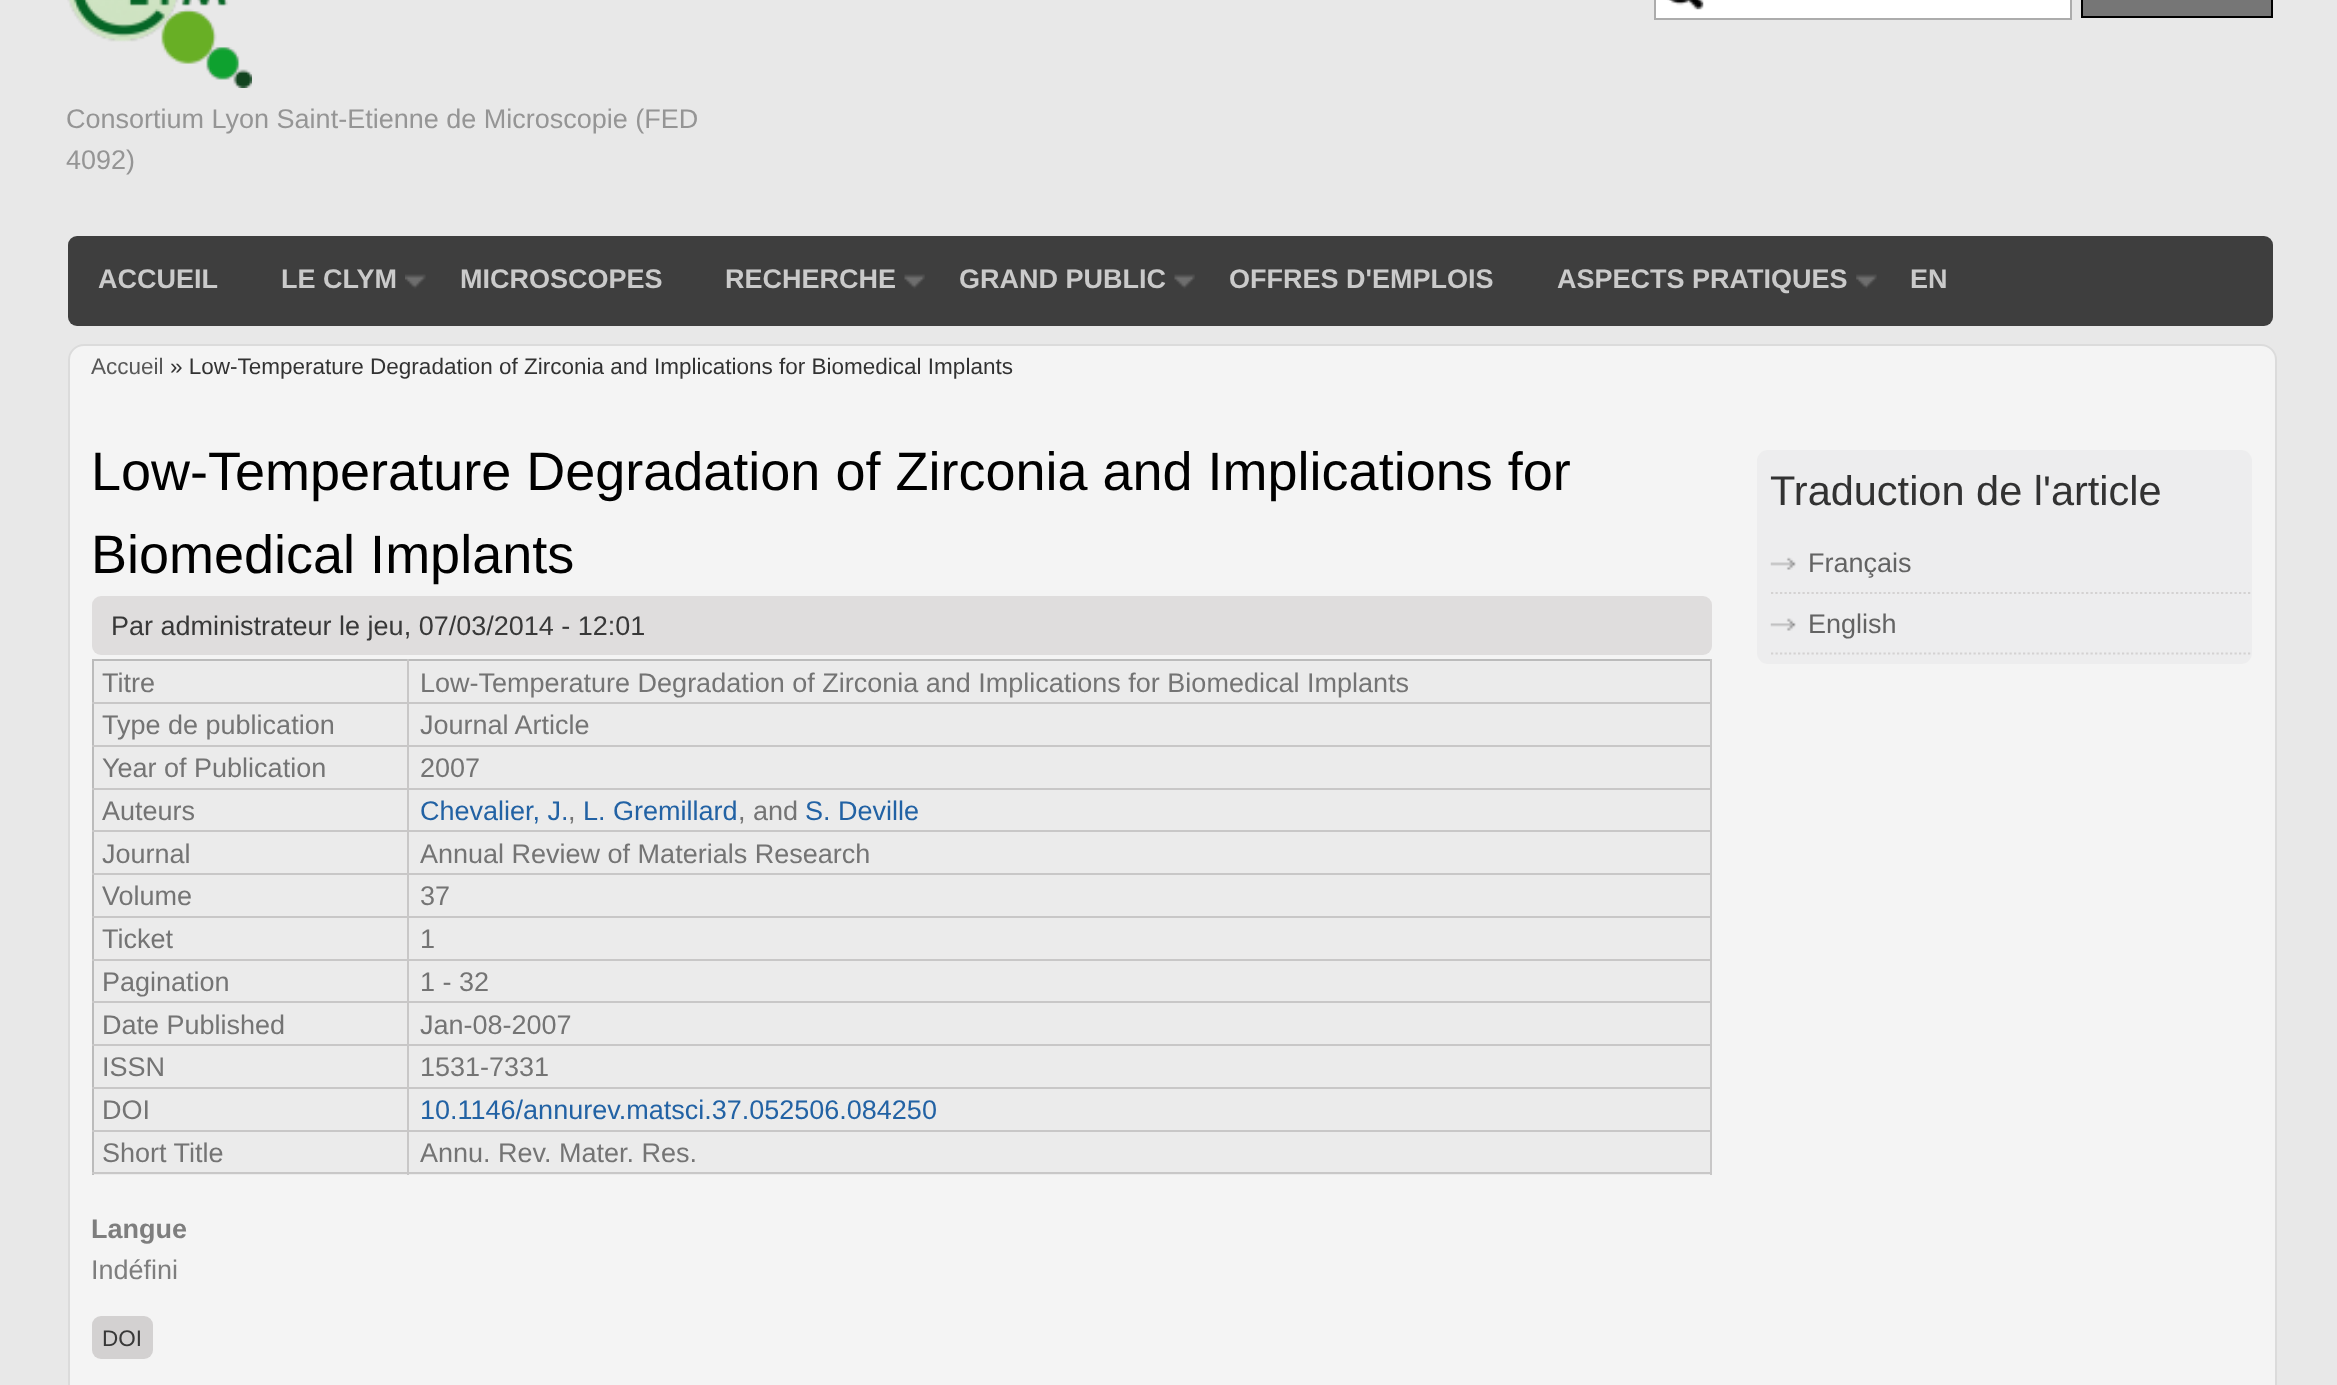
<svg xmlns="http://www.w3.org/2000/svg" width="2337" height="1385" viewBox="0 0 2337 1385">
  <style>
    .t1 { font: 27px Liberation Sans; fill: #959595; }
    .t2 { font: bold 27px Liberation Sans; fill: #cacaca; }
    .t3 { font: 22.5px Liberation Sans; fill: #585858; }
    .t4 { font: 22.5px Liberation Sans; fill: #323232; }
    .t5 { font: 54px Liberation Sans; fill: #000; }
    .t6 { font: 27px Liberation Sans; fill: #383838; }
    .t7 { font: 27px Liberation Sans; fill: #747474; }
    .t8 { font: 27px Liberation Sans; fill: #2262a4; }
    .t9 { font: bold 27px Liberation Sans; fill: #7e7e7e; }
    .t10 { font: 27px Liberation Sans; fill: #7e7e7e; }
    .t11 { font: 22.5px Liberation Sans; fill: #383838; }
    .t12 { font: 41.5px Liberation Sans; fill: #323232; }
    .t13 { font: 27px Liberation Sans; fill: #636363; }
  </style>
  <rect width="100%" height="100%" fill="#e8e8e8"/>
  <rect x="1656" y="0" width="414" height="18" fill="#fff"/>
  <image x="1667" y="0" width="37" height="10" href="images/1.png"/>
  <rect x="1655" y="-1" width="416" height="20" fill="none" stroke="#acacac" stroke-width="2"/>
  <rect x="2082" y="-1" width="190" height="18" fill="#767676" stroke="#000" stroke-width="2"/>
  <image x="67" y="0" width="185" height="88" href="images/2.png"/>
  <text x="66" y="128" class="t1">Consortium Lyon Saint-Etienne de Microscopie (FED</text>
  <text x="66" y="169" class="t1">4092)</text>
  <rect x="68" y="236" width="2205" height="90" rx="9" fill="#3e3e3e"/>
  <text x="98" y="288" class="t2">ACCUEIL</text>
  <image x="405" y="274" width="21" height="15" href="images/3.png"/>
  <text x="281" y="288" class="t2">LE CLYM</text>
  <text x="460" y="288" class="t2">MICROSCOPES</text>
  <image x="904" y="274" width="21" height="15" href="images/4.png"/>
  <text x="725" y="288" class="t2">RECHERCHE</text>
  <image x="1174" y="274" width="21" height="15" href="images/4.png"/>
  <text x="959" y="288" class="t2">GRAND PUBLIC</text>
  <text x="1229" y="288" class="t2">OFFRES D'EMPLOIS</text>
  <image x="1856" y="274" width="21" height="15" href="images/5.png"/>
  <text x="1557" y="288" class="t2">ASPECTS PRATIQUES</text>
  <text x="1910" y="288" class="t2">EN</text>
  <rect x="69" y="345" width="2207" height="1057" rx="15" fill="#f4f4f4" stroke="#dbdbdb" stroke-width="2"/>
  <text x="91" y="374" class="t3">Accueil</text>
  <text x="170" y="374" class="t4">» Low-Temperature Degradation of Zirconia and Implications for Biomedical Implants</text>
  <text x="91" y="490" class="t5">Low-Temperature Degradation of Zirconia and Implications for</text>
  <text x="91" y="573" class="t5">Biomedical Implants</text>
  <rect x="92" y="596" width="1620" height="59" rx="9" fill="#dfdddd"/>
  <text x="111" y="635" class="t6">Par administrateur le jeu, 07/03/2014 - 12:01</text>
  <rect x="94" y="661" width="1616" height="1" fill="#ececec"/>
  <rect x="92" y="659" width="1620" height="2" fill="#bbb"/>
  <rect x="92" y="659" width="2" height="516" fill="#bbb"/>
  <rect x="94" y="662" width="1616" height="40" fill="#ebebeb"/>
  <rect x="94" y="704" width="1616" height="41" fill="#ebebeb"/>
  <rect x="94" y="747" width="1616" height="41" fill="#ebebeb"/>
  <rect x="94" y="790" width="1616" height="43" fill="#ebebeb"/>
  <rect x="94" y="833" width="1616" height="40" fill="#ebebeb"/>
  <rect x="94" y="875" width="1616" height="41" fill="#ebebeb"/>
  <rect x="94" y="918" width="1616" height="41" fill="#ebebeb"/>
  <rect x="94" y="961" width="1616" height="43" fill="#ebebeb"/>
  <rect x="94" y="1004" width="1616" height="40" fill="#ebebeb"/>
  <rect x="94" y="1046" width="1616" height="41" fill="#ebebeb"/>
  <rect x="94" y="1089" width="1616" height="41" fill="#ebebeb"/>
  <rect x="94" y="1132" width="1616" height="43" fill="#ebebeb"/>
  <rect x="1710" y="659" width="2" height="516" fill="#c8c7c7"/>
  <rect x="407" y="1172" width="1305" height="2" fill="#c8c7c7"/>
  <rect x="407" y="1130" width="2" height="45" fill="#c8c7c7"/>
  <rect x="407" y="1130" width="1305" height="2" fill="#c8c7c7"/>
  <rect x="407" y="1087" width="2" height="45" fill="#c8c7c7"/>
  <rect x="407" y="1087" width="1305" height="2" fill="#c8c7c7"/>
  <rect x="407" y="1044" width="2" height="45" fill="#c8c7c7"/>
  <rect x="407" y="1044" width="1305" height="2" fill="#c8c7c7"/>
  <rect x="407" y="1001" width="2" height="45" fill="#c8c7c7"/>
  <rect x="407" y="1001" width="1305" height="2" fill="#c8c7c7"/>
  <rect x="407" y="959" width="2" height="45" fill="#c8c7c7"/>
  <rect x="407" y="959" width="1305" height="2" fill="#c8c7c7"/>
  <rect x="407" y="916" width="2" height="45" fill="#c8c7c7"/>
  <rect x="407" y="916" width="1305" height="2" fill="#c8c7c7"/>
  <rect x="407" y="873" width="2" height="45" fill="#c8c7c7"/>
  <rect x="407" y="873" width="1305" height="2" fill="#c8c7c7"/>
  <rect x="407" y="830" width="2" height="45" fill="#c8c7c7"/>
  <rect x="407" y="830" width="1305" height="2" fill="#c8c7c7"/>
  <rect x="407" y="788" width="2" height="45" fill="#c8c7c7"/>
  <rect x="407" y="788" width="1305" height="2" fill="#c8c7c7"/>
  <rect x="407" y="745" width="2" height="45" fill="#c8c7c7"/>
  <rect x="407" y="745" width="1305" height="2" fill="#c8c7c7"/>
  <rect x="407" y="702" width="2" height="45" fill="#c8c7c7"/>
  <rect x="407" y="702" width="1305" height="2" fill="#c8c7c7"/>
  <rect x="407" y="659" width="2" height="45" fill="#c8c7c7"/>
  <rect x="92" y="702" width="318" height="2" fill="#c8c7c7"/>
  <text x="102" y="692" class="t7">Titre</text>
  <text x="420" y="692" class="t7">Low-Temperature Degradation of Zirconia and Implications for Biomedical Implants</text>
  <rect x="92" y="745" width="318" height="2" fill="#c8c7c7"/>
  <text x="102" y="734" class="t7">Type de publication</text>
  <text x="420" y="734" class="t7">Journal Article</text>
  <rect x="92" y="788" width="318" height="2" fill="#c8c7c7"/>
  <text x="102" y="777" class="t7">Year of Publication</text>
  <text x="420" y="777" class="t7">2007</text>
  <rect x="92" y="830" width="318" height="2" fill="#c8c7c7"/>
  <text x="102" y="820" class="t7">Auteurs</text>
  <text x="420" y="820" class="t8">Chevalier, J.</text>
  <text x="568" y="820" class="t7">,</text>
  <text x="583" y="820" class="t8">L. Gremillard</text>
  <text x="738" y="820" class="t7">, and</text>
  <text x="805" y="820" class="t8">S. Deville</text>
  <rect x="92" y="873" width="318" height="2" fill="#c8c7c7"/>
  <text x="102" y="863" class="t7">Journal</text>
  <text x="420" y="863" class="t7">Annual Review of Materials Research</text>
  <rect x="92" y="916" width="318" height="2" fill="#c8c7c7"/>
  <text x="102" y="905" class="t7">Volume</text>
  <text x="420" y="905" class="t7">37</text>
  <rect x="92" y="959" width="318" height="2" fill="#c8c7c7"/>
  <text x="102" y="948" class="t7">Ticket</text>
  <text x="420" y="948" class="t7">1</text>
  <rect x="92" y="1001" width="318" height="2" fill="#c8c7c7"/>
  <text x="102" y="991" class="t7">Pagination</text>
  <text x="420" y="991" class="t7">1 - 32</text>
  <rect x="92" y="1044" width="318" height="2" fill="#c8c7c7"/>
  <text x="102" y="1034" class="t7">Date Published</text>
  <text x="420" y="1034" class="t7">Jan-08-2007</text>
  <rect x="92" y="1087" width="318" height="2" fill="#c8c7c7"/>
  <text x="102" y="1076" class="t7">ISSN</text>
  <text x="420" y="1076" class="t7">1531-7331</text>
  <rect x="92" y="1130" width="318" height="2" fill="#c8c7c7"/>
  <text x="102" y="1119" class="t7">DOI</text>
  <text x="420" y="1119" class="t8">10.1146/annurev.matsci.37.052506.084250</text>
  <rect x="92" y="1172" width="318" height="2" fill="#c8c7c7"/>
  <text x="102" y="1162" class="t7">Short Title</text>
  <text x="420" y="1162" class="t7">Annu. Rev. Mater. Res.</text>
  <text x="91" y="1238" class="t9">Langue</text>
  <text x="91" y="1279" class="t10">Indéfini</text>
  <rect x="92" y="1316" width="61" height="43" rx="9" fill="#d3d1d1"/>
  <text x="102" y="1346" class="t11">DOI</text>
  <rect x="1757" y="450" width="495" height="214" rx="11" fill="#ededee"/>
  <text x="1770" y="505" class="t12">Traduction de l'article</text>
  <image x="1770" y="557" width="26" height="13" href="images/6.png"/>
  <path d="M1771 593H2252" fill="none" stroke="#d4d2d2" stroke-width="2.2" stroke-dasharray="2.25 2.25"/>
  <text x="1808" y="572" class="t13">Français</text>
  <image x="1770" y="618" width="26" height="13" href="images/7.png"/>
  <path d="M1771 653.5H2252" fill="none" stroke="#d4d2d2" stroke-width="2.2" stroke-dasharray="2.25 2.25"/>
  <text x="1808" y="633" class="t13">English</text>
</svg>
